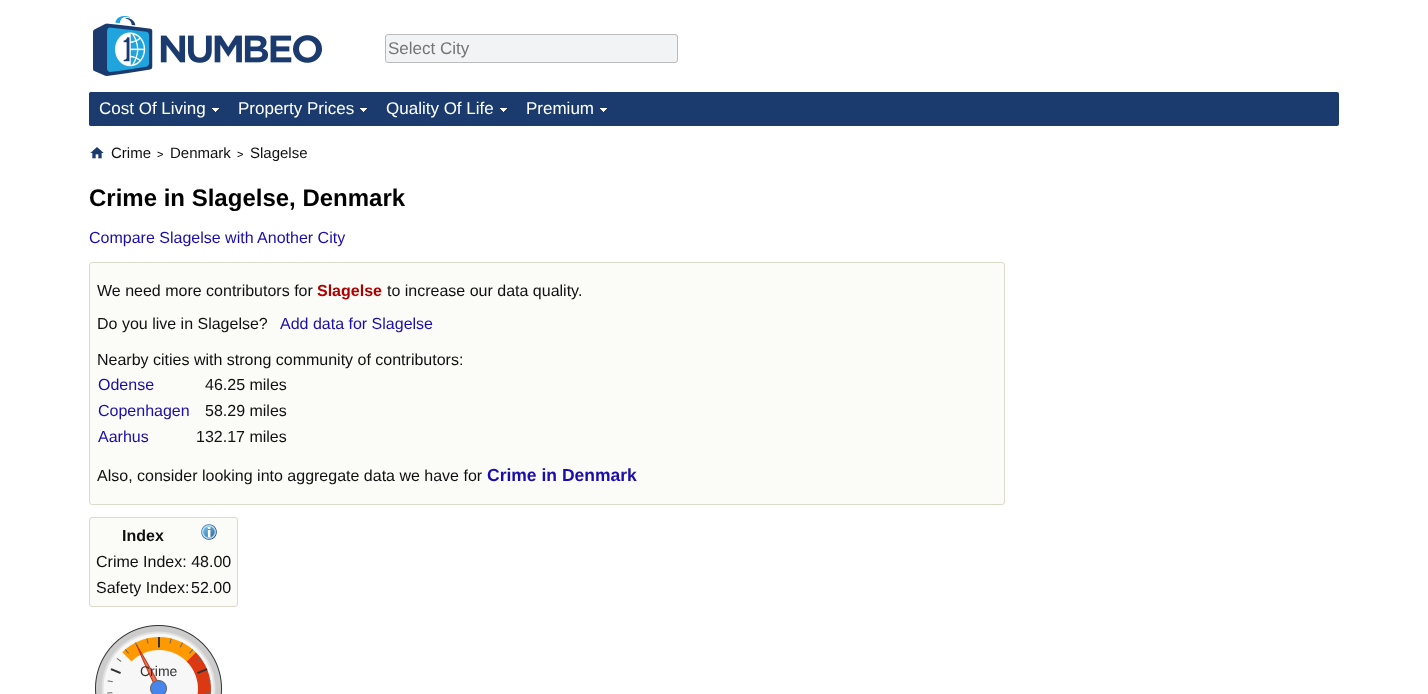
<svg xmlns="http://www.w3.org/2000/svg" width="1428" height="694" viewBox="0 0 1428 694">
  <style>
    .t1 { font: 17px Liberation Sans; fill: #757575; }
    .t2 { font: 17px Liberation Sans; fill: #fff; }
    .t3 { font: 15px Liberation Sans; fill: #101010; }
    .t4 { font: 11px Liberation Sans; fill: #000; }
    .t5 { font: bold 24px Liberation Sans; fill: #000; }
    .t6 { font: 16px Liberation Sans; fill: #1a0dab; }
    .t7 { font: 16px Liberation Sans; fill: #101010; }
    .t8 { font: bold 16px Liberation Sans; fill: #af0000; }
    .t9 { font: bold 17.5px Liberation Sans; fill: #1a0dab; }
    .t10 { font: bold 16px Liberation Sans; fill: #101010; }
    .t11 { font: 14px Liberation Sans; fill: #333; }
  </style>
  <rect width="100%" height="100%" fill="#fff"/>
  <image x="93" y="16" width="229" height="60" href="images/1.png"/>
  <rect x="385.5" y="34.5" width="292" height="28" rx="2.5" fill="#f1f3f4" stroke="#bbb"/>
  <text x="388" y="54" class="t1">Select City</text>
  <rect x="89" y="92" width="1250" height="34" rx="2" fill="#1b3b6f"/>
  <rect x="89" y="92" width="139" height="34" rx="3" fill="#1b3b6f"/>
  <image x="212" y="108" width="7" height="4" href="images/2.png"/>
  <text x="99" y="114" class="t2">Cost Of Living</text>
  <image x="360" y="108" width="7" height="4" href="images/2.png"/>
  <text x="238" y="114" class="t2">Property Prices</text>
  <image x="500" y="108" width="7" height="4" href="images/2.png"/>
  <text x="386" y="114" class="t2">Quality Of Life</text>
  <image x="600" y="108" width="7" height="4" href="images/2.png"/>
  <text x="526" y="114" class="t2">Premium</text>
  <image x="90" y="147" width="14" height="12" href="images/3.png"/>
  <text x="111" y="158" class="t3">Crime</text>
  <text x="157" y="158" class="t4">&gt;</text>
  <text x="170" y="158" class="t3">Denmark</text>
  <text x="237" y="158" class="t4">&gt;</text>
  <text x="250" y="158" class="t3">Slagelse</text>
  <text x="89" y="206" class="t5">Crime in Slagelse, Denmark</text>
  <text x="89" y="243" class="t6">Compare Slagelse with Another City</text>
  <rect x="89.5" y="262.5" width="915" height="242" rx="2.5" fill="#fbfbf8" stroke="#dcdacb"/>
  <text x="97" y="296" class="t7">We need more contributors for</text>
  <text x="317" y="296" class="t8">Slagelse</text>
  <text x="387" y="296" class="t7">to increase our data quality.</text>
  <text x="97" y="329" class="t7">Do you live in Slagelse?</text>
  <text x="280" y="329" class="t6">Add data for Slagelse</text>
  <text x="97" y="365" class="t7">Nearby cities with strong community of contributors:</text>
  <text x="98" y="390" class="t6">Odense</text>
  <text x="205" y="390" class="t7">46.25 miles</text>
  <text x="98" y="416" class="t6">Copenhagen</text>
  <text x="205" y="416" class="t7">58.29 miles</text>
  <text x="98" y="442" class="t6">Aarhus</text>
  <text x="196" y="442" class="t7">132.17 miles</text>
  <text x="97" y="481" class="t7">Also, consider looking into aggregate data we have for</text>
  <text x="487" y="481" class="t9">Crime in Denmark</text>
  <rect x="89.5" y="517.5" width="148" height="89" rx="2.5" fill="#fbfbf8" stroke="#dcdacb"/>
  <text x="122" y="541" class="t10">Index</text>
  <image x="201" y="524" width="16" height="16" href="images/4.png"/>
  <text x="96" y="567" class="t7">Crime Index: 48.00</text>
  <text x="96" y="593" class="t7">Safety Index:</text>
  <text x="191" y="593" class="t7">52.00</text>
  <image x="95" y="625" width="127" height="69" href="images/5.png"/>
  <text x="140" y="676" class="t11">Crime</text>
</svg>
